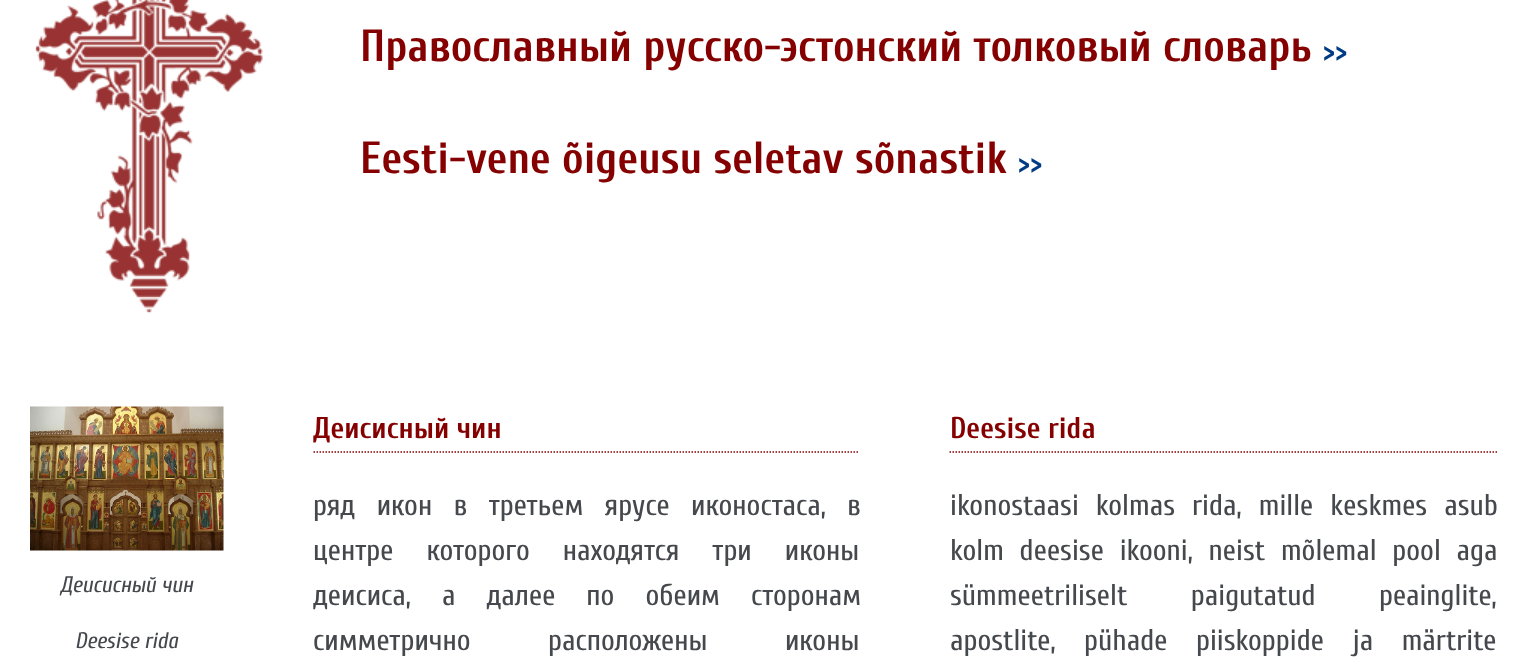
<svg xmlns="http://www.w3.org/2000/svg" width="1527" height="670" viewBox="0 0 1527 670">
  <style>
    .t1 { font: bold 45px Cuprum; fill: #850000; }
    .t2 { font: bold 30px Cuprum; fill: #003c85; }
    .t3 { font: italic 22.5px Cuprum; fill: #45484c; }
    .t4 { font: bold 30px Cuprum; fill: #850000; }
    .t5 { font: 30px Cuprum; fill: #45484c; }
  </style>
  <rect width="100%" height="100%" fill="#fff"/>
  <image x="35" y="0" width="228" height="313" href="images/1.png"/>
  <text x="360" y="61" class="t1">Православный русско-эстонский толковый словарь</text>
  <text x="1323" y="61" class="t2">&gt;&gt;</text>
  <text x="360" y="173" class="t1">Eesti-vene õigeusu seletav sõnastik</text>
  <text x="1018" y="173" class="t2">&gt;&gt;</text>
  <image x="30" y="406" width="194" height="145" href="images/2.png"/>
  <text x="60" y="592" class="t3">Деисисный чин</text>
  <text x="75" y="648" class="t3">Deesise rida</text>
  <path d="M313.5 452H859.5" fill="none" stroke="#850000" stroke-width="1.5" stroke-dasharray="1.5 1.5"/>
  <text x="313" y="438" class="t4">Деисисный чин</text>
  <text x="313" y="515" word-spacing="14" class="t5">ряд икон в третьем ярусе иконостаса, в</text>
  <text x="313" y="560" word-spacing="25.5" class="t5">центре которого находятся три иконы</text>
  <text x="313" y="605" word-spacing="23.5" class="t5">деисиса, а далее по обеим сторонам</text>
  <text x="313" y="650" word-spacing="70" class="t5">симметрично расположены иконы</text>
  <path d="M949.5 452H1497" fill="none" stroke="#850000" stroke-width="1.5" stroke-dasharray="1.5 1.5"/>
  <text x="950" y="438" class="t4">Deesise rida</text>
  <text x="950" y="515" word-spacing="9.5" class="t5">ikonostaasi kolmas rida, mille keskmes asub</text>
  <text x="950" y="560" word-spacing="8.25" class="t5">kolm deesise ikooni, neist mõlemal pool aga</text>
  <text x="950" y="605" word-spacing="56" class="t5">sümmeetriliselt paigutatud peainglite,</text>
  <text x="950" y="650" word-spacing="21" class="t5">apostlite, pühade piiskoppide ja märtrite</text>
</svg>
